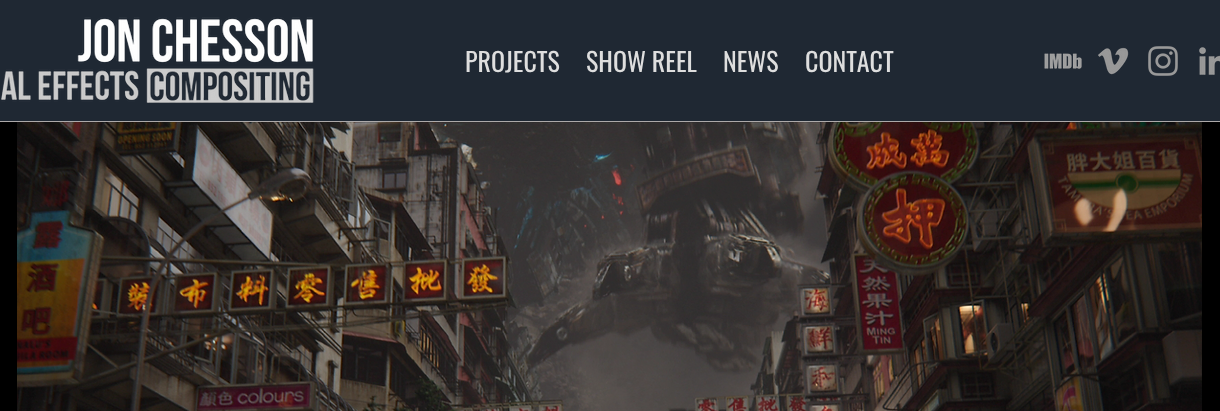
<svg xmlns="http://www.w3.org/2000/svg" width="1220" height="411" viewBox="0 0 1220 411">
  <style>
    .t1 { font: 26px Oswald; fill: #dedede; }
  </style>
  <rect width="100%" height="100%" fill="#000"/>
  <rect x="0" y="0" width="1220" height="121" fill="#1f2833"/>
  <rect x="0" y="121" width="1220" height="1" fill="#aca9a9"/>
  <image x="1" y="17" width="313" height="86" href="images/1.png"/>
  <text x="465" y="72" class="t1">PROJECTS</text>
  <text x="586" y="72" class="t1">SHOW REEL</text>
  <text x="723" y="72" class="t1">NEWS</text>
  <text x="805" y="72" class="t1">CONTACT</text>
  <image x="1044" y="53" width="38" height="16" href="images/2.png"/>
  <image x="1098" y="47" width="31" height="28" href="images/3.png"/>
  <image x="1148" y="46" width="30" height="30" href="images/4.png"/>
  <image x="1199" y="47" width="21" height="28" href="images/5.png"/>
  <image x="17" y="122" width="1185" height="289" href="images/6.png"/>
</svg>
